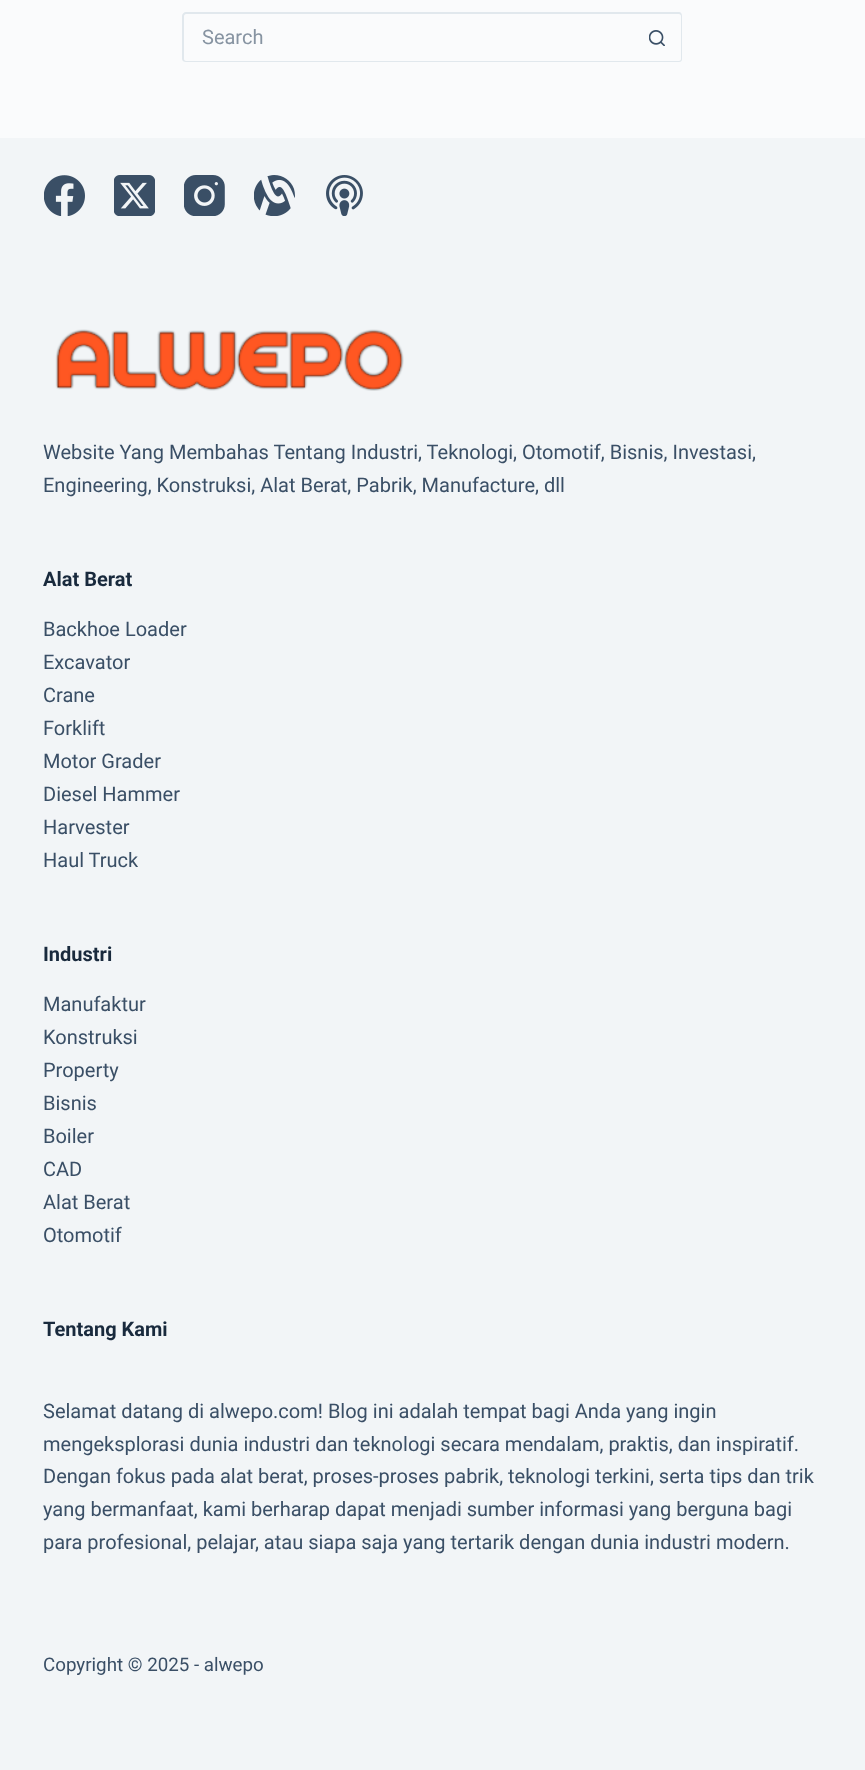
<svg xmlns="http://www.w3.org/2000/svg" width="865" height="1770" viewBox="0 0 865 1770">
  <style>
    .t1 { font: 20px Roboto; fill: #8794a2; }
    .t2 { font: 20px Roboto; fill: #3a4f66; }
    .t3 { font: bold 20px Roboto; fill: #192a3d; }
    .t4 { font: 18.75px Roboto; fill: #3a4f66; }
  </style>
  <rect width="100%" height="100%" fill="#fafbfc"/>
  <path d="M186 12H632V62H186C184 62 182 61 182 59V16C182 14 184 12 186 12ZM186 14H632V61H186C185 61 184 60 184 59V16C184 15 185 14 186 14Z" fill="#e1e8ed" fill-rule="evenodd"/>
  <text x="202" y="44" class="t1">Search</text>
  <path d="M632 12H679C681 12 682 14 682 16V59C682 61 681 62 679 62H632ZM632 14H679C680 14 681 15 681 16V59C681 60 680 61 679 61H632Z" fill="#e1e8ed" fill-rule="evenodd"/>
  <image x="649" y="30" width="16" height="16" href="images/1.png"/>
  <rect x="0" y="138" width="865" height="1632" fill="#f2f5f7"/>
  <image x="44" y="175" width="41" height="41" href="images/2.png"/>
  <image x="114" y="175" width="41" height="41" href="images/3.png"/>
  <image x="184" y="175" width="41" height="41" href="images/4.png"/>
  <image x="254" y="175" width="41" height="41" href="images/5.png"/>
  <image x="326" y="175" width="37" height="41" href="images/6.png"/>
  <image x="55" y="329" width="349" height="62" href="images/7.png"/>
  <text x="43" y="459" class="t2">Website Yang Membahas Tentang Industri, Teknologi, Otomotif, Bisnis, Investasi,</text>
  <text x="43" y="492" class="t2">Engineering, Konstruksi, Alat Berat, Pabrik, Manufacture, dll</text>
  <text x="43" y="586" class="t3">Alat Berat</text>
  <text x="43" y="636" class="t2">Backhoe Loader</text>
  <text x="43" y="669" class="t2">Excavator</text>
  <text x="43" y="702" class="t2">Crane</text>
  <text x="43" y="735" class="t2">Forklift</text>
  <text x="43" y="768" class="t2">Motor Grader</text>
  <text x="43" y="801" class="t2">Diesel Hammer</text>
  <text x="43" y="834" class="t2">Harvester</text>
  <text x="43" y="867" class="t2">Haul Truck</text>
  <text x="43" y="961" class="t3">Industri</text>
  <text x="43" y="1011" class="t2">Manufaktur</text>
  <text x="43" y="1044" class="t2">Konstruksi</text>
  <text x="43" y="1077" class="t2">Property</text>
  <text x="43" y="1110" class="t2">Bisnis</text>
  <text x="43" y="1143" class="t2">Boiler</text>
  <text x="43" y="1176" class="t2">CAD</text>
  <text x="43" y="1209" class="t2">Alat Berat</text>
  <text x="43" y="1242" class="t2">Otomotif</text>
  <text x="43" y="1336" class="t3">Tentang Kami</text>
  <text x="43" y="1418" class="t2">Selamat datang di alwepo.com! Blog ini adalah tempat bagi Anda yang ingin</text>
  <text x="43" y="1451" class="t2">mengeksplorasi dunia industri dan teknologi secara mendalam, praktis, dan inspiratif.</text>
  <text x="43" y="1483" class="t2">Dengan fokus pada alat berat, proses-proses pabrik, teknologi terkini, serta tips dan trik</text>
  <text x="43" y="1516" class="t2">yang bermanfaat, kami berharap dapat menjadi sumber informasi yang berguna bagi</text>
  <text x="43" y="1549" class="t2">para profesional, pelajar, atau siapa saja yang tertarik dengan dunia industri modern.</text>
  <text x="43" y="1671" class="t4">Copyright © 2025 - alwepo</text>
</svg>
